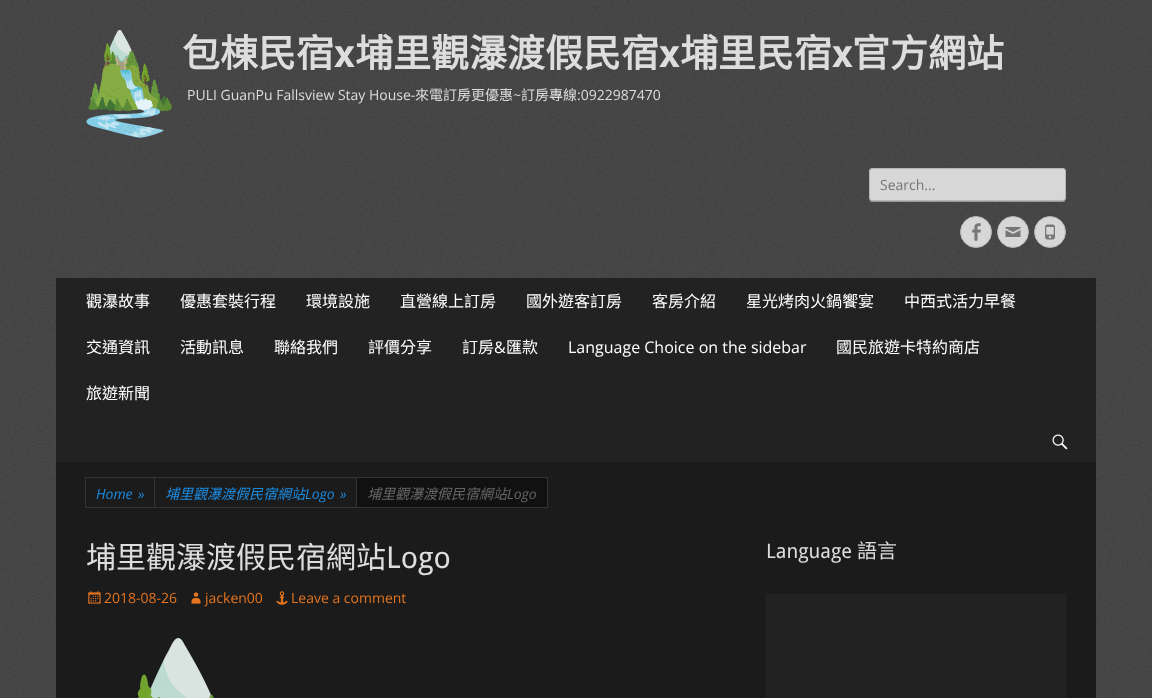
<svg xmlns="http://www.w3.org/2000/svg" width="1152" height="698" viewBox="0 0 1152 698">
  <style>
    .t1 { font: bold 38px Noto Sans CJK TC; fill: #ddd; }
    .t2 { font: bold 38px Droid Sans; fill: #ddd; }
    .t3 { font: 14px Open Sans; fill: #ddd; }
    .t4 { font: 14px Noto Sans CJK TC; fill: #ddd; }
    .t5 { font: 14px Open Sans; fill: #757575; }
    .t6 { font: 16px Noto Sans CJK TC; fill: #fff; }
    .t7 { font: 16px Open Sans; fill: #fff; }
    .t8 { font: italic 14px Open Sans; fill: #1b8be0; }
    .t9 { font: italic 14px Noto Sans CJK TC; fill: #1b8be0; }
    .t10 { font: italic 14px Noto Sans CJK TC; fill: #666; }
    .t11 { font: italic 14px Open Sans; fill: #666; }
    .t12 { font: 30px Noto Sans CJK TC; fill: #ddd; }
    .t13 { font: 30px Droid Sans; fill: #ddd; }
    .t14 { font: 14px Open Sans; fill: #e4741f; }
    .t15 { font: 20px Droid Sans; fill: #ddd; }
    .t16 { font: 20px Noto Sans CJK TC; fill: #ddd; }
  </style>
  <rect width="100%" height="100%" fill="#fff"/>
  <image x="0" y="0" width="1152" height="698" href="images/1.png"/>
  <image x="86" y="30" width="86" height="108" href="images/2.png"/>
  <text x="182" y="67" class="t1">包棟民宿</text>
  <text x="334" y="67" class="t2">x</text>
  <text x="355" y="67" class="t1">埔里觀瀑渡假民宿</text>
  <text x="659" y="67" class="t2">x</text>
  <text x="680" y="67" class="t1">埔里民宿</text>
  <text x="832" y="67" class="t2">x</text>
  <text x="852" y="67" class="t1">官方網站</text>
  <text x="187" y="100" class="t3">PULI GuanPu Fallsview Stay House-</text>
  <text x="415" y="100" class="t4">來電訂房更優惠</text>
  <text x="513" y="100" class="t3">~</text>
  <text x="521" y="100" class="t4">訂房專線</text>
  <text x="577" y="100" class="t3">:0922987470</text>
  <path d="M869 198C869 200 870 202 872 202H1063C1065 202 1066 200 1066 198C1066 200 1065 201 1063 201H872C870 201 869 200 869 198Z" fill="#999"/>
  <rect x="869.5" y="168.5" width="196" height="32" rx="2.5" fill="#d7d7d7" stroke="#b6b6b6"/>
  <text x="880" y="190" class="t5">Search...</text>
  <circle cx="976" cy="232" r="15.5" fill="#d7d7d7" stroke="#b6b6b6"/>
  <image x="972" y="223" width="9" height="18" href="images/3.png"/>
  <circle cx="1013" cy="232" r="15.5" fill="#d7d7d7" stroke="#b6b6b6"/>
  <image x="1005" y="227" width="16" height="10" href="images/4.png"/>
  <circle cx="1050" cy="232" r="15.5" fill="#d7d7d7" stroke="#b6b6b6"/>
  <image x="1045" y="224" width="10" height="16" href="images/5.png"/>
  <rect x="56" y="278" width="1040" height="184" fill="#222"/>
  <text x="86" y="307" class="t6">觀瀑故事</text>
  <text x="180" y="307" class="t6">優惠套裝行程</text>
  <text x="306" y="307" class="t6">環境設施</text>
  <text x="400" y="307" class="t6">直營線上訂房</text>
  <text x="526" y="307" class="t6">國外遊客訂房</text>
  <text x="652" y="307" class="t6">客房介紹</text>
  <text x="746" y="307" class="t6">星光烤肉火鍋饗宴</text>
  <text x="904" y="307" class="t6">中西式活力早餐</text>
  <text x="86" y="353" class="t6">交通資訊</text>
  <text x="180" y="353" class="t6">活動訊息</text>
  <text x="274" y="353" class="t6">聯絡我們</text>
  <text x="368" y="353" class="t6">評價分享</text>
  <text x="462" y="353" class="t6">訂房</text>
  <text x="494" y="353" class="t7">&amp;</text>
  <text x="506" y="353" class="t6">匯款</text>
  <text x="568" y="353" class="t7">Language Choice on the sidebar</text>
  <text x="836" y="353" class="t6">國民旅遊卡特約商店</text>
  <text x="86" y="399" class="t6">旅遊新聞</text>
  <image x="1052" y="434" width="16" height="16" href="images/6.png"/>
  <rect x="56" y="462" width="1040" height="236" fill="#1b1b1b"/>
  <rect x="85.5" y="477.5" width="69" height="30" fill="none" stroke="#333"/>
  <text x="96" y="499" class="t8">Home</text>
  <text x="138" y="499" class="t8">»</text>
  <rect x="154.5" y="477.5" width="202" height="30" fill="none" stroke="#333"/>
  <text x="165" y="499" class="t9">埔里觀瀑渡假民宿網站</text>
  <text x="305" y="499" class="t8">Logo</text>
  <text x="340" y="499" class="t8">»</text>
  <rect x="356.5" y="477.5" width="191" height="30" fill="#111" stroke="#333"/>
  <text x="367" y="499" class="t10">埔里觀瀑渡假民宿網站</text>
  <text x="507" y="499" class="t11">Logo</text>
  <text x="86" y="568" class="t12">埔里觀瀑渡假民宿網站</text>
  <text x="386" y="568" class="t13">Logo</text>
  <image x="88" y="591" width="13" height="13" href="images/7.png"/>
  <text x="104" y="603" class="t14">2018-08-26</text>
  <image x="191" y="592" width="10" height="12" href="images/8.png"/>
  <text x="205" y="603" class="t14">jacken00</text>
  <image x="276" y="591" width="12" height="14" href="images/9.png"/>
  <text x="291" y="603" class="t14">Leave a comment</text>
  <image x="137" y="638" width="77" height="60" href="images/10.png"/>
  <text x="766" y="558" class="t15">Language</text>
  <text x="857" y="558" class="t16">語言</text>
  <rect x="766" y="594" width="300" height="104" fill="#222"/>
</svg>
